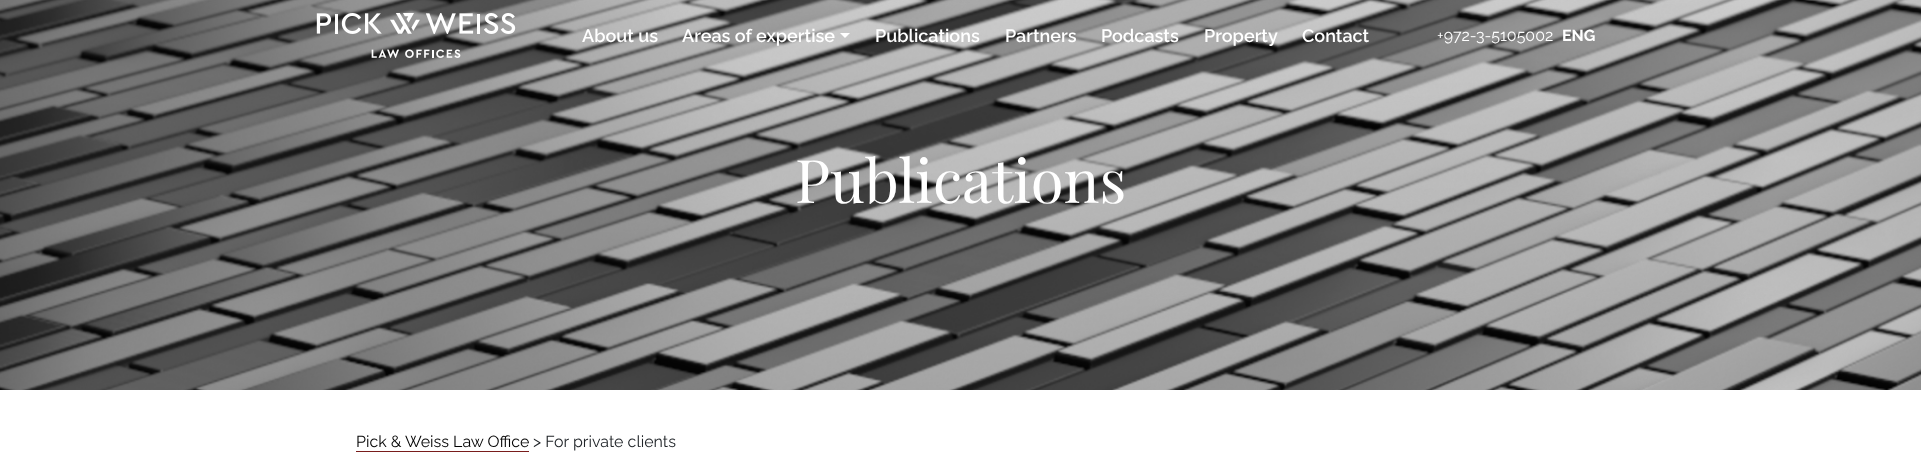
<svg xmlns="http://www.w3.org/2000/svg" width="1921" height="476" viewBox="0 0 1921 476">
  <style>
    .t1 { font: 600 18px 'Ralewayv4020'; fill: #fff; }
    .t2 { font: 16px 'Ralewayv4020'; fill: #fff; }
    .t3 { font: bold 16px 'Ralewayv4020'; fill: #fff; }
    .t4 { font: 60px Playfair Display; fill: #fff; }
    .t5 { font: 16px 'Ralewayv4020'; fill: #000; }
    .t6 { font: 16px 'Ralewayv4020'; fill: #212529; }
  </style>
  <rect width="100%" height="100%" fill="#fff"/>
  <image x="0" y="0" width="1921" height="390" href="images/1.png"/>
  <image x="316" y="13" width="200" height="45" href="images/2.png"/>
  <text x="582" y="42" class="t1">About us</text>
  <text x="682" y="42" class="t1">Areas of expertise</text>
  <path d="M840 33H850L845 38Z" fill="#fff"/>
  <text x="875" y="42" class="t1">Publications</text>
  <text x="1005" y="42" class="t1">Partners</text>
  <text x="1101" y="42" class="t1">Podcasts</text>
  <text x="1204" y="42" class="t1">Property</text>
  <text x="1302" y="42" class="t1">Contact</text>
  <text x="1437" y="41" class="t2">+972-3-5105002</text>
  <text x="1562" y="41" class="t3">ENG</text>
  <text x="795" y="203" class="t4">Publications</text>
  <text x="356" y="447" class="t5">Pick &amp; Weiss Law Office</text>
  <rect x="356" y="451" width="173" height="1" fill="#791d1c"/>
  <text x="533" y="447" class="t6">&gt; For private clients</text>
</svg>
